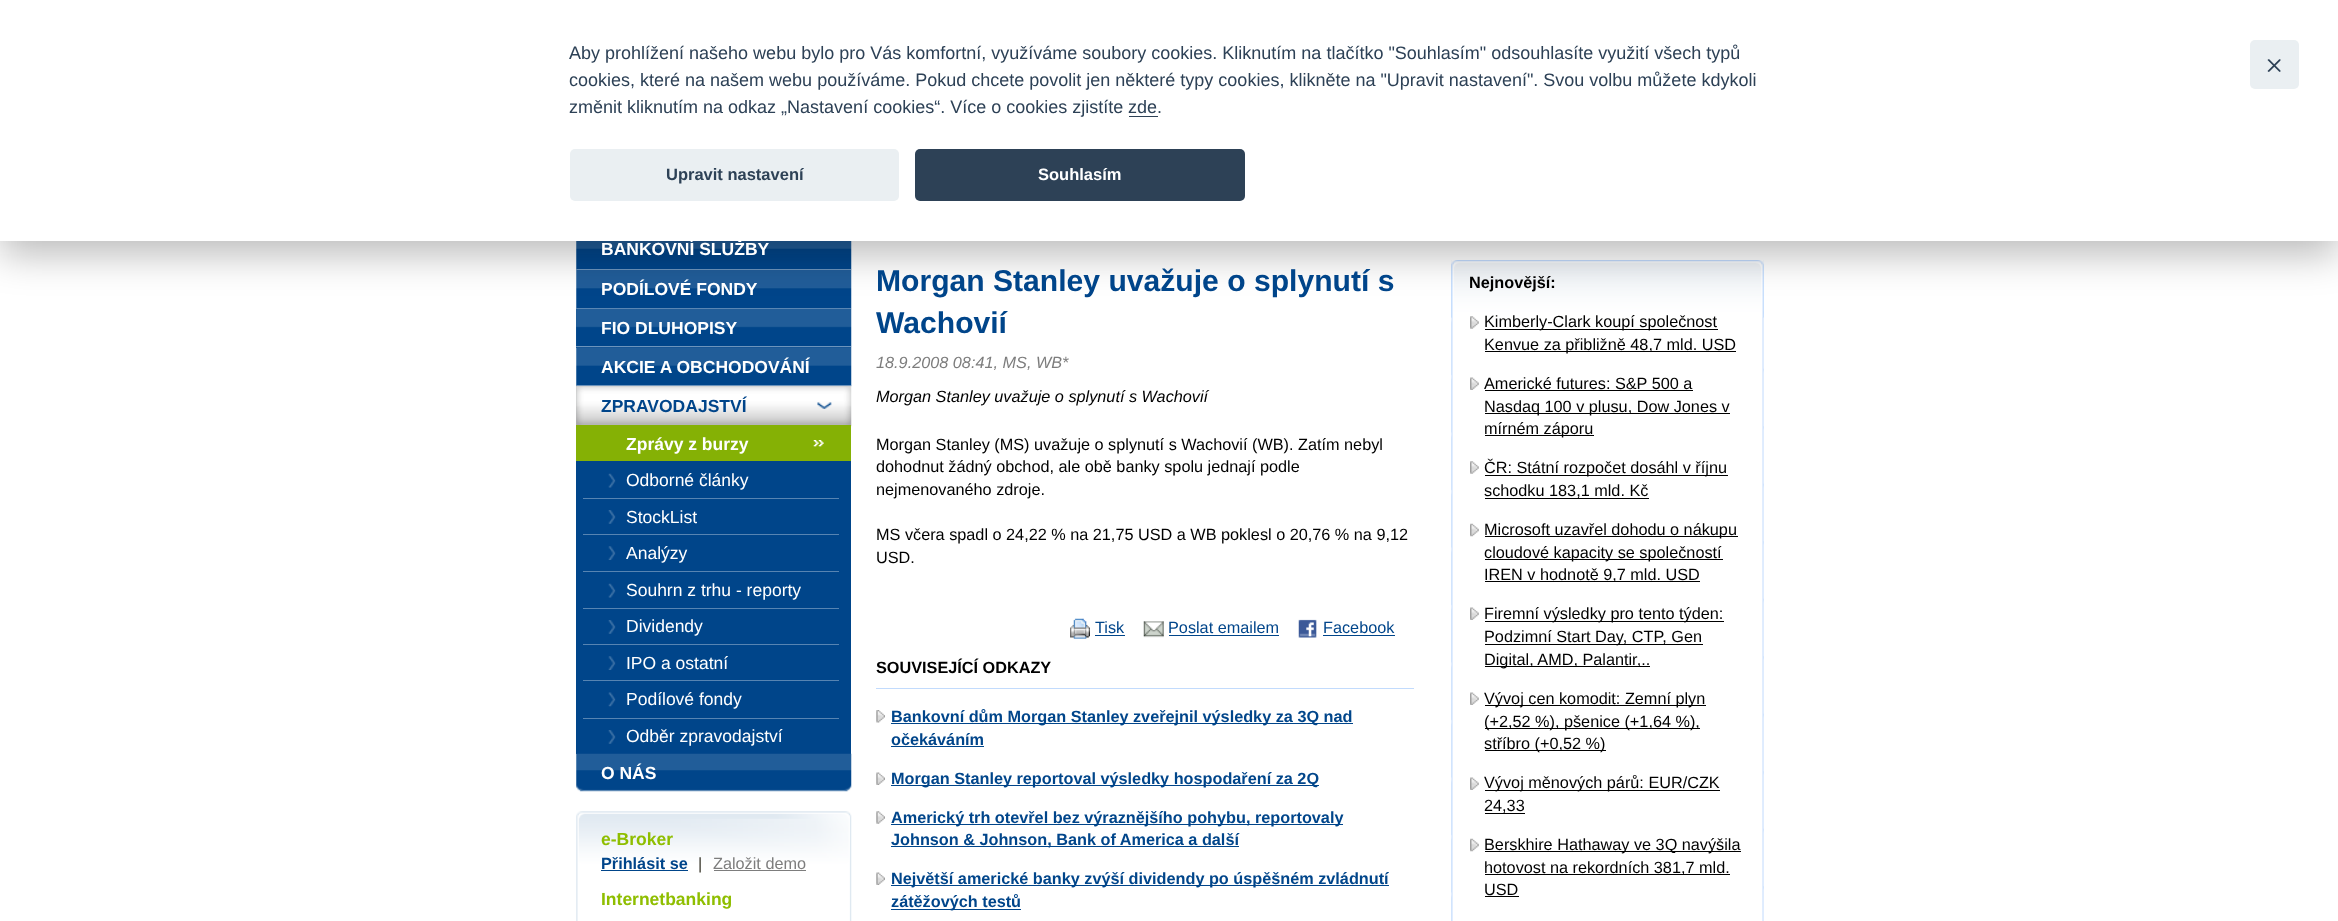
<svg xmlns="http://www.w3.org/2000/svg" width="2338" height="921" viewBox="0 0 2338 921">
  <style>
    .t1 { font: 18px Liberation Sans; fill: #2d4156; }
    .t2 { font: bold 16.5px Liberation Sans; fill: #2d4156; }
    .t3 { font: bold 16.5px Liberation Sans; fill: #fff; }
    .t4 { font: bold 17.5px Liberation Sans; fill: #fff; }
    .t5 { font: bold 17.5px Liberation Sans; fill: #00458a; }
    .t6 { font: 17.5px Liberation Sans; fill: #fff; }
    .t7 { font: bold 17.5px Liberation Sans; fill: #8fbe00; }
    .t8 { font: bold 16.25px Liberation Sans; fill: #00458a; }
    .t9 { font: 16.25px Liberation Sans; fill: #39382c; }
    .t10 { font: 16.25px Liberation Sans; fill: #7d7d7d; }
    .t11 { font: bold 30.1px Liberation Sans; fill: #00458a; }
    .t12 { font: italic 16.25px Liberation Sans; fill: #7d7d7d; }
    .t13 { font: italic 16.25px Liberation Sans; fill: #000; }
    .t14 { font: 16.25px Liberation Sans; fill: #000; }
    .t15 { font: 16.25px Liberation Sans; fill: #00458a; }
    .t16 { font: bold 16.25px Liberation Sans; fill: #000; }
  </style>
  <rect width="100%" height="100%" fill="#fff"/>
  <image x="576" y="241" width="276" height="29" href="images/1.png"/>
  <rect x="576" y="269" width="275" height="1" fill="#6d94bc"/>
  <image x="576" y="270" width="276" height="39" href="images/2.png"/>
  <rect x="576" y="308" width="275" height="1" fill="#6d94bc"/>
  <rect x="576" y="309" width="275" height="39" fill="#215d99"/>
  <image x="576" y="308" width="276" height="40" href="images/3.png"/>
  <image x="1451" y="260" width="313" height="661" href="images/22.png"/>
  <image x="1451" y="260" width="313" height="58" href="images/23.png"/>
  <rect x="0" y="13" width="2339" height="241" fill="#02020347" filter="blur(19px)"/>
  <rect x="0" y="0" width="2338" height="241" fill="#fff"/>
  <text x="569" y="59" class="t1">Aby prohlížení našeho webu bylo pro Vás komfortní, využíváme soubory cookies. Kliknutím na tlačítko "Souhlasím" odsouhlasíte využití všech typů</text>
  <text x="569" y="86" class="t1">cookies, které na našem webu používáme. Pokud chcete povolit jen některé typy cookies, klikněte na "Upravit nastavení". Svou volbu můžete kdykoli</text>
  <text x="569" y="113" class="t1">změnit kliknutím na odkaz „Nastavení cookies“. Více o cookies zjistíte</text>
  <text x="1128" y="113" class="t1">zde.</text>
  <rect x="1129" y="116" width="29" height="1" fill="#2d4156"/>
  <rect x="570" y="149" width="329" height="52" rx="5" fill="#eaeff2"/>
  <text x="666" y="180" class="t2">Upravit nastavení</text>
  <rect x="915" y="149" width="330" height="52" rx="5" fill="#2d4156"/>
  <text x="1038" y="180" class="t3">Souhlasím</text>
  <rect x="2250" y="40" width="49" height="49" rx="5" fill="#eaeff2"/>
  <path d="M2280.5 59.5C2280.5 59.5 2280.5 60.5 2280.5 60.5L2269.5 71.5C2269 72 2268.5 72 2268 71.5C2267.5 71.5 2267.5 70.5 2268 70.5L2279 59.5C2279.5 59 2280 59 2280.5 59.5Z" fill="#2d4156"/>
  <path d="M2268 59.5C2268.5 59 2269 59 2269.5 59.5L2280.5 70.5C2280.5 70.5 2280.5 71.5 2280.5 71.5C2280 72 2279.5 72 2279 71.5L2268 60.5C2267.5 60.5 2267.5 59.5 2268 59.5Z" fill="#2d4156"/>
  <text x="601" y="255" class="t4">BANKOVNÍ SLUŽBY</text>
  <text x="601" y="295" class="t4">PODÍLOVÉ FONDY</text>
  <rect x="576" y="346" width="275" height="1" fill="#6d94bc"/>
  <text x="601" y="334" class="t4">FIO DLUHOPISY</text>
  <image x="576" y="347" width="276" height="40" href="images/4.png"/>
  <rect x="576" y="385" width="275" height="1" fill="#6d94bc"/>
  <text x="601" y="373" class="t4">AKCIE A OBCHODOVÁNÍ</text>
  <rect x="576" y="386" width="275" height="39" fill="#b6b6b6"/>
  <image x="576" y="386" width="276" height="41" href="images/5.png"/>
  <image x="817" y="402" width="15" height="7" href="images/6.png"/>
  <text x="601" y="412" class="t5">ZPRAVODAJSTVÍ</text>
  <rect x="576" y="461" width="275" height="293" fill="#00458a"/>
  <rect x="576" y="425" width="275" height="36" fill="#85b105"/>
  <image x="813" y="440" width="11" height="7" href="images/7.png"/>
  <text x="626" y="450" class="t4">Zprávy z burzy</text>
  <image x="608" y="473" width="8" height="15" href="images/8.png"/>
  <rect x="583" y="498" width="256" height="1" fill="#5784b2"/>
  <text x="626" y="486" class="t6">Odborné články</text>
  <image x="608" y="510" width="8" height="14" href="images/9.png"/>
  <rect x="583" y="534" width="256" height="1" fill="#5784b2"/>
  <text x="626" y="523" class="t6">StockList</text>
  <image x="608" y="546" width="8" height="14" href="images/10.png"/>
  <rect x="583" y="571" width="256" height="1" fill="#5784b2"/>
  <text x="626" y="559" class="t6">Analýzy</text>
  <image x="608" y="583" width="8" height="15" href="images/11.png"/>
  <rect x="583" y="608" width="256" height="1" fill="#5784b2"/>
  <text x="626" y="596" class="t6">Souhrn z trhu - reporty</text>
  <image x="608" y="620" width="8" height="14" href="images/9.png"/>
  <rect x="583" y="644" width="256" height="1" fill="#5784b2"/>
  <text x="626" y="632" class="t6">Dividendy</text>
  <image x="608" y="656" width="8" height="14" href="images/10.png"/>
  <rect x="583" y="680" width="256" height="1" fill="#5784b2"/>
  <text x="626" y="669" class="t6">IPO a ostatní</text>
  <image x="608" y="692" width="8" height="15" href="images/12.png"/>
  <rect x="583" y="718" width="256" height="1" fill="#5784b2"/>
  <text x="626" y="705" class="t6">Podílové fondy</text>
  <image x="608" y="730" width="8" height="14" href="images/9.png"/>
  <text x="626" y="742" class="t6">Odběr zpravodajství</text>
  <image x="576" y="753" width="276" height="39" href="images/13.png"/>
  <text x="601" y="779" class="t4">O NÁS</text>
  <image x="576" y="811" width="276" height="110" href="images/14.png"/>
  <text x="601" y="845" class="t7">e-Broker</text>
  <text x="601" y="869" class="t8">Přihlásit se</text>
  <rect x="601" y="870" width="87" height="1" fill="#00458a"/>
  <text x="698" y="869" class="t9">|</text>
  <text x="713" y="869" class="t10">Založit demo</text>
  <rect x="714" y="870" width="92" height="1" fill="#7d7d7d"/>
  <text x="601" y="905" class="t7">Internetbanking</text>
  <text x="876" y="291" class="t11">Morgan Stanley uvažuje o splynutí s</text>
  <text x="876" y="333" class="t11">Wachovií</text>
  <text x="876" y="368" class="t12">18.9.2008 08:41, MS, WB*</text>
  <text x="876" y="402" class="t13">Morgan Stanley uvažuje o splynutí s Wachovií</text>
  <text x="876" y="450" class="t14">Morgan Stanley (MS) uvažuje o splynutí s Wachovií (WB). Zatím nebyl</text>
  <text x="876" y="472" class="t14">dohodnut žádný obchod, ale obě banky spolu jednají podle</text>
  <text x="876" y="495" class="t14">nejmenovaného zdroje.</text>
  <text x="876" y="540" class="t14">MS včera spadl o 24,22 % na 21,75 USD a WB poklesl o 20,76 % na 9,12</text>
  <text x="876" y="563" class="t14">USD.</text>
  <image x="1070" y="618" width="20" height="21" href="images/15.png"/>
  <text x="1095" y="633" class="t15">Tisk</text>
  <rect x="1095" y="635" width="30" height="1" fill="#00458a"/>
  <image x="1143" y="621" width="21" height="17" href="images/16.png"/>
  <text x="1168" y="633" class="t15">Poslat emailem</text>
  <rect x="1169" y="635" width="110" height="1" fill="#00458a"/>
  <image x="1298" y="619" width="19" height="19" href="images/17.png"/>
  <text x="1323" y="633" class="t15">Facebook</text>
  <rect x="1323" y="635" width="72" height="1" fill="#00458a"/>
  <rect x="876" y="688" width="538" height="1" fill="#c2dbfd"/>
  <text x="876" y="673" class="t16">SOUVISEJÍCÍ ODKAZY</text>
  <image x="876" y="710" width="9" height="13" href="images/18.png"/>
  <rect x="891" y="723" width="462" height="1" fill="#00458a"/>
  <text x="891" y="722" class="t8">Bankovní dům Morgan Stanley zveřejnil výsledky za 3Q nad</text>
  <text x="891" y="745" class="t8">očekáváním</text>
  <rect x="891" y="746" width="93" height="1" fill="#00458a"/>
  <image x="876" y="772" width="9" height="13" href="images/19.png"/>
  <rect x="891" y="785" width="428" height="1" fill="#00458a"/>
  <text x="891" y="784" class="t8">Morgan Stanley reportoval výsledky hospodaření za 2Q</text>
  <image x="876" y="811" width="9" height="13" href="images/20.png"/>
  <rect x="891" y="824" width="452" height="1" fill="#00458a"/>
  <text x="891" y="823" class="t8">Americký trh otevřel bez výraznějšího pohybu, reportovaly</text>
  <rect x="891" y="846" width="348" height="1" fill="#00458a"/>
  <text x="891" y="845" class="t8">Johnson &amp; Johnson, Bank of America a další</text>
  <image x="876" y="872" width="9" height="13" href="images/21.png"/>
  <rect x="891" y="885" width="498" height="1" fill="#00458a"/>
  <text x="891" y="884" class="t8">Největší americké banky zvýší dividendy po úspěšném zvládnutí</text>
  <rect x="891" y="909" width="130" height="1" fill="#00458a"/>
  <text x="891" y="907" class="t8">zátěžových testů</text>
  <text x="1469" y="288" class="t16">Nejnovější:</text>
  <image x="1470" y="316" width="9" height="13" href="images/24.png"/>
  <rect x="1485" y="329" width="233" height="1" fill="#000"/>
  <text x="1484" y="327" class="t14">Kimberly-Clark koupí společnost</text>
  <rect x="1485" y="351" width="251" height="1" fill="#000"/>
  <text x="1484" y="350" class="t14">Kenvue za přibližně 48,7 mld. USD</text>
  <image x="1470" y="377" width="9" height="13" href="images/25.png"/>
  <text x="1484" y="389" class="t14">Americké futures: S&amp;P 500 a</text>
  <rect x="1485" y="390" width="208" height="1" fill="#000"/>
  <rect x="1485" y="413" width="245" height="1" fill="#000"/>
  <text x="1484" y="412" class="t14">Nasdaq 100 v plusu, Dow Jones v</text>
  <rect x="1485" y="435" width="109" height="1" fill="#000"/>
  <text x="1484" y="434" class="t14">mírném záporu</text>
  <image x="1470" y="461" width="9" height="13" href="images/24.png"/>
  <rect x="1485" y="475" width="243" height="1" fill="#000"/>
  <text x="1484" y="473" class="t14">ČR: Státní rozpočet dosáhl v říjnu</text>
  <rect x="1485" y="498" width="164" height="1" fill="#000"/>
  <text x="1484" y="496" class="t14">schodku 183,1 mld. Kč</text>
  <image x="1470" y="523" width="9" height="14" href="images/26.png"/>
  <rect x="1485" y="536" width="253" height="1" fill="#000"/>
  <text x="1484" y="535" class="t14">Microsoft uzavřel dohodu o nákupu</text>
  <rect x="1485" y="559" width="238" height="1" fill="#000"/>
  <text x="1484" y="558" class="t14">cloudové kapacity se společností</text>
  <rect x="1485" y="581" width="215" height="1" fill="#000"/>
  <text x="1484" y="580" class="t14">IREN v hodnotě 9,7 mld. USD</text>
  <image x="1470" y="607" width="9" height="13" href="images/25.png"/>
  <rect x="1485" y="621" width="239" height="1" fill="#000"/>
  <text x="1484" y="619" class="t14">Firemní výsledky pro tento týden:</text>
  <rect x="1485" y="644" width="218" height="1" fill="#000"/>
  <text x="1484" y="642" class="t14">Podzimní Start Day, CTP, Gen</text>
  <rect x="1485" y="666" width="165" height="1" fill="#000"/>
  <text x="1484" y="665" class="t14">Digital, AMD, Palantir,..</text>
  <image x="1470" y="692" width="9" height="13" href="images/25.png"/>
  <rect x="1485" y="705" width="221" height="1" fill="#000"/>
  <text x="1484" y="704" class="t14">Vývoj cen komodit: Zemní plyn</text>
  <rect x="1485" y="728" width="215" height="1" fill="#000"/>
  <text x="1484" y="727" class="t14">(+2,52 %), pšenice (+1,64 %),</text>
  <rect x="1485" y="750" width="121" height="1" fill="#000"/>
  <text x="1484" y="749" class="t14">stříbro (+0,52 %)</text>
  <image x="1470" y="777" width="9" height="13" href="images/27.png"/>
  <rect x="1485" y="790" width="235" height="1" fill="#000"/>
  <text x="1484" y="788" class="t14">Vývoj měnových párů: EUR/CZK</text>
  <rect x="1485" y="813" width="40" height="1" fill="#000"/>
  <text x="1484" y="811" class="t14">24,33</text>
  <image x="1470" y="838" width="9" height="14" href="images/26.png"/>
  <rect x="1485" y="851" width="256" height="1" fill="#000"/>
  <text x="1484" y="850" class="t14">Berskhire Hathaway ve 3Q navýšila</text>
  <rect x="1485" y="874" width="245" height="1" fill="#000"/>
  <text x="1484" y="873" class="t14">hotovost na rekordních 381,7 mld.</text>
  <text x="1484" y="895" class="t14">USD</text>
  <rect x="1485" y="896" width="34" height="1" fill="#000"/>
</svg>
